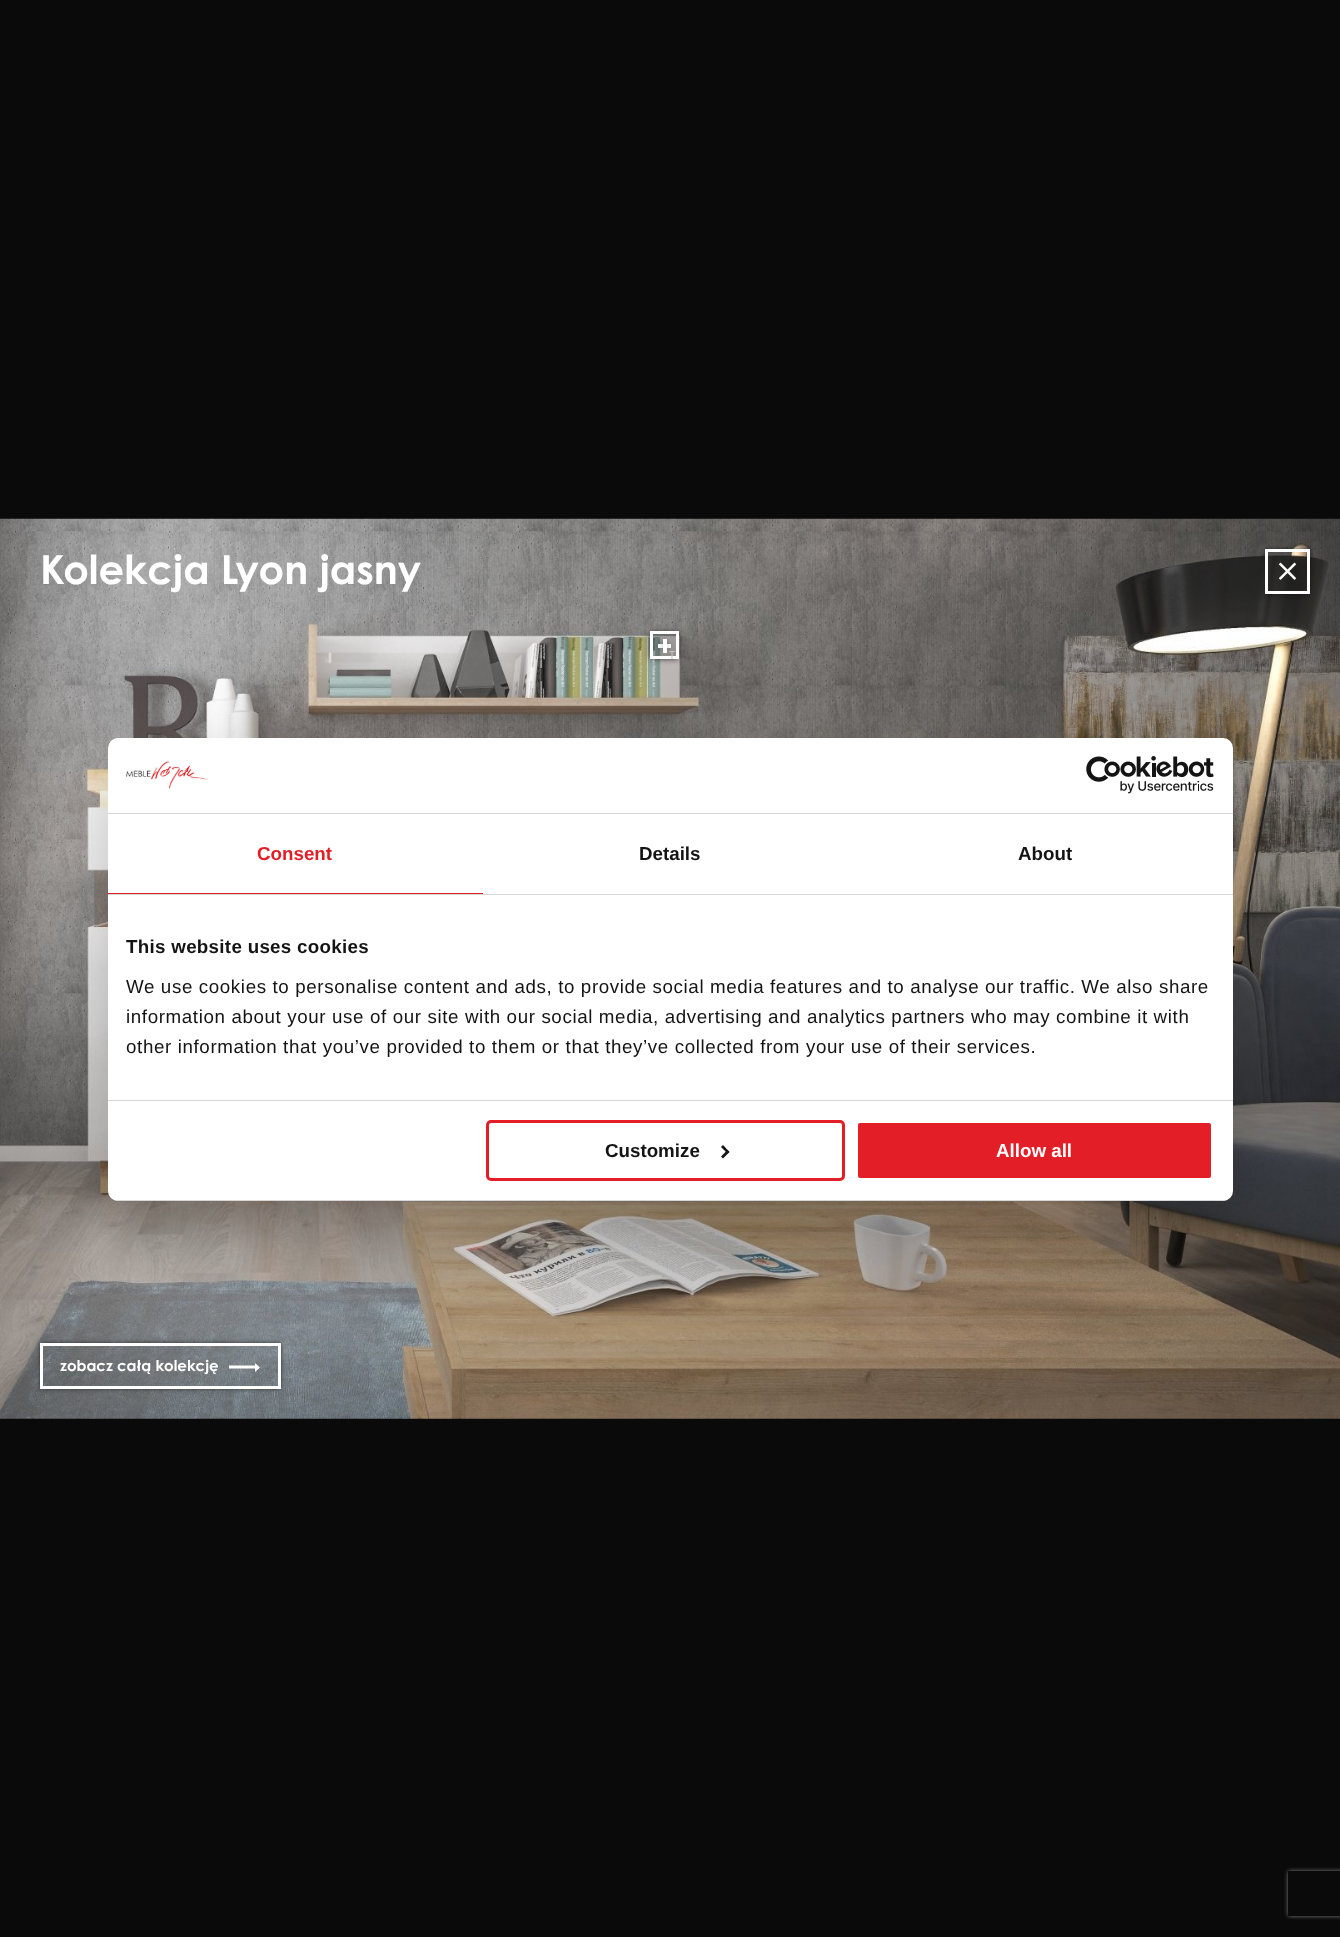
<svg xmlns="http://www.w3.org/2000/svg" width="1340" height="1937" viewBox="0 0 1340 1937">
  <style>
    .t1 { font: bold 40px Century Gothic; fill: #fff; }
    .t2 { font: 14px Century Gothic; fill: #c7c5c4; }
    .t3 { font: bold 15px Century Gothic; fill: #fff; }
    .t4 { font: bold 18.75px Liberation Sans; fill: #e41e26; }
    .t5 { font: bold 18.75px Liberation Sans; fill: #141414; }
    .t6 { font: bold 18.75px Liberation Sans; letter-spacing: 0.3px; fill: #141414; }
    .t7 { font: 18.75px Liberation Sans; letter-spacing: 0.62px; fill: #141414; }
    .t8 { font: bold 18.75px Liberation Sans; fill: #fff; }
  </style>
  <defs>
    <clipPath id="clip1"><path d="M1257 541H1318V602H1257ZM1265 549H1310V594H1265Z" clip-rule="evenodd"/></clipPath>
    <clipPath id="clip2"><path d="M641 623H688V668H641ZM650 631H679V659H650Z" clip-rule="evenodd"/></clipPath>
    <clipPath id="clip3"><rect x="650" y="631" width="29" height="28"/></clipPath>
    <clipPath id="clip4"><path d="M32 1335H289V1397H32ZM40 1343H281V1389H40Z" clip-rule="evenodd"/></clipPath>
    <clipPath id="clip5"><rect x="108" y="738" width="1125" height="463" rx="10"/></clipPath>
    <clipPath id="clip6"><path d="M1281 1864H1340V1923H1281ZM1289 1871H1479C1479.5 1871 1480 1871.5 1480 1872V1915C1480 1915.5 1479.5 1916 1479 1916H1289C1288.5 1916 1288 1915.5 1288 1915V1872C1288 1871.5 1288.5 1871 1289 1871Z" clip-rule="evenodd"/></clipPath>
  </defs>
  <rect width="100%" height="100%" fill="#0a0a0a"/>
  <image x="0" y="518" width="1340" height="901" href="images/1.png"/>
  <text x="40" y="584" class="t1">Kolekcja Lyon jasny</text>
  <g clip-path="url(#clip1)">
    <rect x="1266" y="550" width="43" height="43" fill="#0a0a0a" filter="blur(2.5px)"/>
  </g>
  <rect x="1266.5" y="550.5" width="42" height="42" fill="none" stroke="#fff" stroke-width="3"/>
  <image x="1278" y="562" width="19" height="18" href="images/2.png"/>
  <g clip-path="url(#clip2)">
    <rect x="651" y="633" width="27" height="25" fill="#0a0a0a" filter="blur(3px)"/>
  </g>
  <rect x="651.5" y="632.5" width="26" height="25" fill="#00000033" stroke="#fff" stroke-width="3"/>
  <rect x="659" y="645" width="11" height="1" fill="#0a0a0a" filter="blur(2.5px)"/>
  <rect x="658" y="644" width="13" height="4" fill="#fff"/>
  <rect x="664" y="640" width="1" height="11" fill="#0a0a0a" filter="blur(2.5px)"/>
  <rect x="663" y="639" width="4" height="14" fill="#fff"/>
  <g clip-path="url(#clip3)">
    <text x="669" y="661" class="t2">T</text>
  </g>
  <g clip-path="url(#clip4)">
    <rect x="41" y="1344" width="239" height="44" fill="#0a0a0a" filter="blur(2.5px)"/>
  </g>
  <rect x="41.5" y="1344.5" width="238" height="43" fill="none" stroke="#fff" stroke-width="3"/>
  <text x="60" y="1371" class="t3">zobacz całą kolekcję</text>
  <path d="M255 1363V1372L260 1367.5ZM229 1365.5V1368.5H255.5V1365.5Z" fill="#fff"/>
  <rect x="108" y="778" width="1125" height="463" rx="10" fill="#0000004d" filter="blur(42.5px)"/>
  <rect x="108" y="738" width="1125" height="463" rx="10" fill="#fff"/>
  <rect x="108" y="813" width="1125" height="1" fill="#d6d6d6"/>
  <image x="126" y="761" width="82" height="28" href="images/3.png"/>
  <image x="1086" y="756" width="128" height="38" href="images/4.png"/>
  <rect x="108" y="894" width="1125" height="1" fill="#d6d6d6"/>
  <rect x="108" y="893" width="375" height="1" fill="#e41e26"/>
  <text x="257" y="860" class="t4">Consent</text>
  <text x="639" y="860" class="t5">Details</text>
  <text x="1018" y="860" class="t5">About</text>
  <rect x="108" y="1100" width="1125" height="1" fill="#d6d6d6"/>
  <text x="126" y="953" class="t6">This website uses cookies</text>
  <text x="126" y="993" class="t7">We use cookies to personalise content and ads, to provide social media features and to analyse our traffic. We also share</text>
  <text x="126" y="1023" class="t7">information about your use of our site with our social media, advertising and analytics partners who may combine it with</text>
  <text x="126" y="1053" class="t7">other information that you’ve provided to them or that they’ve collected from your use of their services.</text>
  <g clip-path="url(#clip5)">
    <rect x="108" y="1200" width="1125" height="1" fill="#d6d6d6"/>
  </g>
  <rect x="487.5" y="1121.5" width="356" height="58" rx="3.5" fill="none" stroke="#e41e26" stroke-width="3"/>
  <text x="605" y="1157" class="t5">Customize</text>
  <path d="M723 1145L729.5 1152L727.5 1153.5L721 1147Z" fill="#141414"/>
  <path d="M727.5 1150L729.5 1152L723 1158.5L721 1156.5Z" fill="#141414"/>
  <rect x="856.5" y="1121.5" width="356" height="58" rx="3.5" fill="#e41e26" stroke="#fff" stroke-width="3"/>
  <text x="996" y="1157" class="t8">Allow all</text>
  <g clip-path="url(#clip6)">
    <rect x="1288" y="1871" width="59" height="45" rx="1" fill="#808080" filter="blur(2px)"/>
  </g>
</svg>
